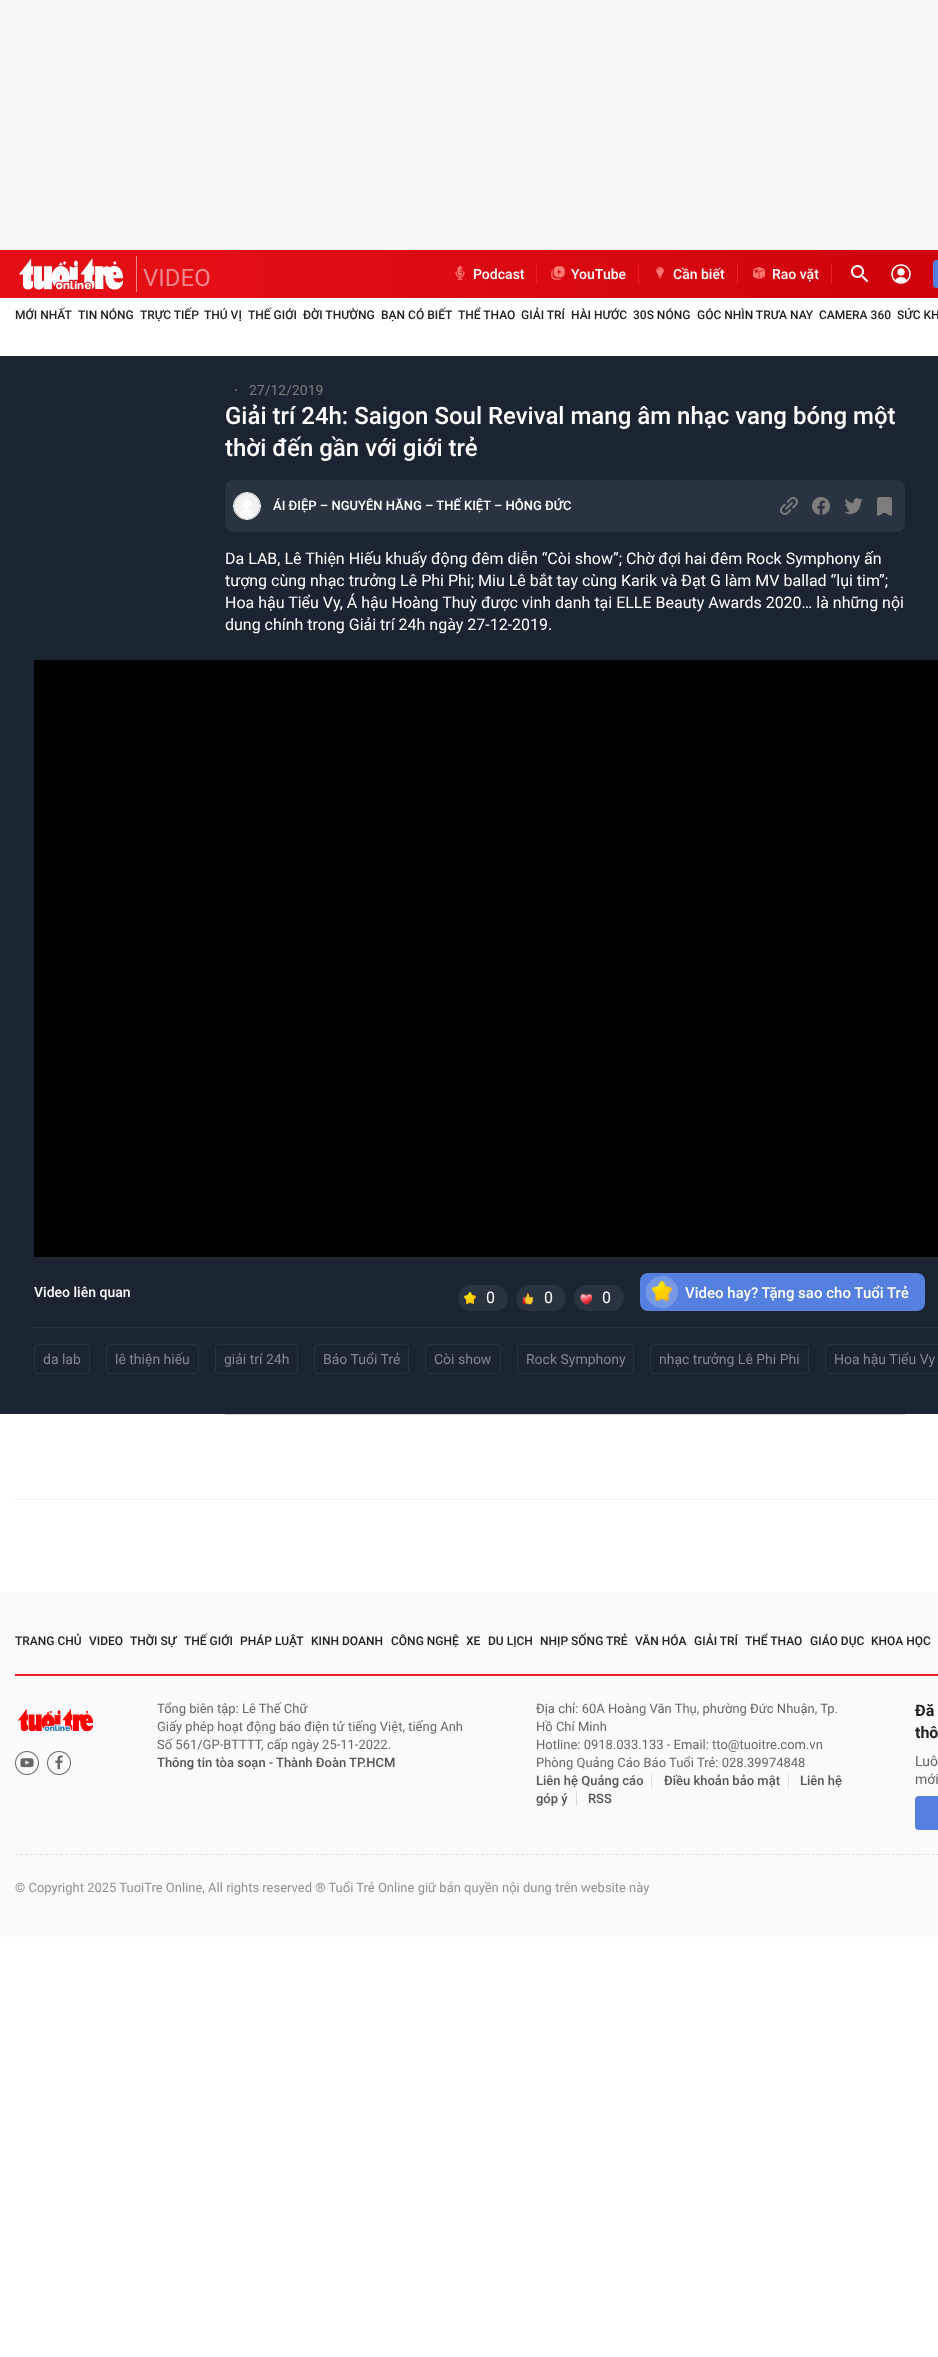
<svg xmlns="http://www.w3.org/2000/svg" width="938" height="2357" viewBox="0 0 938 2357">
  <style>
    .t1 { font: 24px Roboto; fill: #f1868a; }
    .t2 { font: 500 14px Roboto; fill: #fff; }
    .t3 { font: 500 12px Roboto; fill: #222; }
    .t4 { font: 14px Roboto; fill: #7d7d7d; }
    .t5 { font: 500 24px Roboto; fill: #fff; }
    .t6 { font: 500 13px Roboto; fill: #fff; }
    .t7 { font: 16px Roboto; fill: #fff; }
    .t8 { font: 500 15px Roboto; fill: #fff; }
    .t9 { font: 14px Roboto; fill: #858692; }
    .t10 { font: 13px Roboto; fill: #666; }
    .t11 { font: 500 13px Roboto; fill: #565656; }
    .t12 { font: bold 16px Roboto; fill: #222; }
    .t13 { font: 14px Roboto; fill: #666; }
    .t14 { font: 13px Roboto; fill: #8f8f8f; }
  </style>
  <defs>
    <linearGradient id="g1" gradientUnits="userSpaceOnUse" x1="-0.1" y1="273" x2="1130" y2="275"><stop offset="0.19" stop-color="#e30e16"/><stop offset="0.97" stop-color="#c90009"/></linearGradient>
  </defs>
  <rect width="100%" height="100%" fill="#fff"/>
  <rect x="0" y="0" width="938" height="250" fill="#f7f7f7"/>
  <rect x="0" y="250" width="938" height="48" fill="url(#g1)"/>
  <rect x="136" y="256" width="1" height="36" fill="#f1868a"/>
  <image x="19" y="258" width="104" height="32" href="images/1.png"/>
  <text x="143" y="286" class="t1">VIDEO</text>
  <rect x="536" y="264" width="1" height="20" fill="#ed1c24"/>
  <image x="455" y="266" width="10" height="14" href="images/2.png"/>
  <text x="473" y="279" class="t2">Podcast</text>
  <rect x="638" y="264" width="1" height="20" fill="#ed1c24"/>
  <image x="551" y="266" width="14" height="14" href="images/3.png"/>
  <text x="571" y="279" class="t2">YouTube</text>
  <rect x="737" y="264" width="1" height="20" fill="#ed1c24"/>
  <image x="656" y="267" width="8" height="12" href="images/4.png"/>
  <text x="673" y="279" class="t2">Cần biết</text>
  <rect x="831" y="264" width="1" height="20" fill="#ed1c24"/>
  <image x="753" y="267" width="12" height="12" href="images/5.png"/>
  <text x="772" y="279" class="t2">Rao vặt</text>
  <image x="851" y="265" width="17" height="17" href="images/6.png"/>
  <image x="891" y="264" width="20" height="20" href="images/7.png"/>
  <rect x="933" y="260" width="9" height="28" rx="4" fill="#5580df"/>
  <text x="15" y="319" class="t3">MỚI NHẤT</text>
  <text x="78" y="319" class="t3">TIN NÓNG</text>
  <text x="140" y="319" class="t3">TRỰC TIẾP</text>
  <text x="204" y="319" class="t3">THÚ VỊ</text>
  <text x="248" y="319" class="t3">THẾ GIỚI</text>
  <text x="303" y="319" class="t3">ĐỜI THƯỜNG</text>
  <text x="381" y="319" class="t3">BẠN CÓ BIẾT</text>
  <text x="458" y="319" class="t3">THỂ THAO</text>
  <text x="521" y="319" class="t3">GIẢI TRÍ</text>
  <text x="571" y="319" class="t3">HÀI HƯỚC</text>
  <text x="633" y="319" class="t3">30S NÓNG</text>
  <text x="697" y="319" class="t3">GÓC NHÌN TRƯA NAY</text>
  <text x="819" y="319" class="t3">CAMERA 360</text>
  <text x="897" y="319" class="t3">SỨC KH</text>
  <rect x="0" y="356" width="938" height="1058" fill="#1b2431"/>
  <circle cx="236" cy="390" r="1" fill="#7d7d7d"/>
  <text x="249" y="395" class="t4">27/12/2019</text>
  <text x="225" y="424" class="t5">Giải trí 24h: Saigon Soul Revival mang âm nhạc vang bóng một</text>
  <text x="225" y="456" class="t5">thời đến gần với giới trẻ</text>
  <rect x="225" y="480" width="680" height="52" rx="8" fill="#2a3441"/>
  <circle cx="247" cy="506" r="13.5" fill="none" stroke="#fff"/>
  <image x="234" y="493" width="26" height="26" href="images/8.png"/>
  <text x="273" y="510" class="t6">ÁI ĐIỆP – NGUYÊN HẰNG – THẾ KIỆT – HỒNG ĐỨC</text>
  <image x="780" y="497" width="18" height="18" href="images/9.png"/>
  <image x="812" y="497" width="18" height="18" href="images/10.png"/>
  <image x="845" y="498" width="18" height="16" href="images/11.png"/>
  <image x="877" y="497" width="15" height="19" href="images/12.png"/>
  <text x="225" y="564" class="t7">Da LAB, Lê Thiện Hiếu khuấy động đêm diễn “Còi show”; Chờ đợi hai đêm Rock Symphony ấn</text>
  <text x="225" y="586" class="t7">tượng cùng nhạc trưởng Lê Phi Phi; Miu Lê bắt tay cùng Karik và Đạt G làm MV ballad “lụi tim”;</text>
  <text x="225" y="608" class="t7">Hoa hậu Tiểu Vy, Á hậu Hoàng Thuỳ được vinh danh tại ELLE Beauty Awards 2020… là những nội</text>
  <text x="225" y="630" class="t7">dung chính trong Giải trí 24h ngày 27-12-2019.</text>
  <rect x="34" y="660" width="904" height="597" fill="#000"/>
  <text x="34" y="1297" class="t2">Video liên quan</text>
  <rect x="458" y="1285" width="50" height="26" rx="13" fill="#2a3441"/>
  <image x="464" y="1292" width="12" height="12" href="images/13.png"/>
  <text x="486" y="1303" class="t7">0</text>
  <rect x="516" y="1285" width="50" height="26" rx="13" fill="#2a3441"/>
  <image x="522" y="1293" width="12" height="12" href="images/14.png"/>
  <text x="544" y="1303" class="t7">0</text>
  <rect x="574" y="1285" width="50" height="26" rx="13" fill="#2a3441"/>
  <image x="580" y="1293" width="12" height="12" href="images/15.png"/>
  <text x="602" y="1303" class="t7">0</text>
  <rect x="640" y="1273" width="285" height="38" rx="8" fill="#5580df"/>
  <circle cx="662" cy="1292" r="16" fill="#7799e5"/>
  <image x="652" y="1281" width="20" height="20" href="images/16.png"/>
  <text x="685" y="1298" class="t8">Video hay? Tặng sao cho Tuổi Trẻ</text>
  <rect x="34" y="1327" width="904" height="1" fill="#2a3441"/>
  <rect x="34.5" y="1344.5" width="55" height="29" rx="3.5" fill="none" stroke="#2a3441"/>
  <text x="43" y="1364" class="t9">da lab</text>
  <rect x="106.5" y="1344.5" width="92" height="29" rx="3.5" fill="none" stroke="#2a3441"/>
  <text x="115" y="1364" class="t9">lê thiện hiếu</text>
  <rect x="215.5" y="1344.5" width="82" height="29" rx="3.5" fill="none" stroke="#2a3441"/>
  <text x="224" y="1364" class="t9">giải trí 24h</text>
  <rect x="314.5" y="1344.5" width="94" height="29" rx="3.5" fill="none" stroke="#2a3441"/>
  <text x="323" y="1364" class="t9">Báo Tuổi Trẻ</text>
  <rect x="425.5" y="1344.5" width="75" height="29" rx="3.5" fill="none" stroke="#2a3441"/>
  <text x="434" y="1364" class="t9">Còi show</text>
  <rect x="517.5" y="1344.5" width="116" height="29" rx="3.5" fill="none" stroke="#2a3441"/>
  <text x="526" y="1364" class="t9">Rock Symphony</text>
  <rect x="650.5" y="1344.5" width="158" height="29" rx="3.5" fill="none" stroke="#2a3441"/>
  <text x="659" y="1364" class="t9">nhạc trưởng Lê Phi Phi</text>
  <rect x="825.5" y="1344.5" width="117" height="29" rx="3.5" fill="none" stroke="#2a3441"/>
  <text x="834" y="1364" class="t9">Hoa hậu Tiểu Vy</text>
  <rect x="225" y="1414" width="680" height="1" fill="#d6d6d6"/>
  <rect x="15" y="1499" width="923" height="1" fill="#f2f2f2"/>
  <rect x="0" y="1592" width="938" height="345" fill="#fafafc"/>
  <rect x="15" y="1674" width="923" height="2" fill="#ed1c24"/>
  <text x="15" y="1645" class="t3">TRANG CHỦ</text>
  <text x="89" y="1645" class="t3">VIDEO</text>
  <text x="130" y="1645" class="t3">THỜI SỰ</text>
  <text x="184" y="1645" class="t3">THẾ GIỚI</text>
  <text x="240" y="1645" class="t3">PHÁP LUẬT</text>
  <text x="311" y="1645" class="t3">KINH DOANH</text>
  <text x="391" y="1645" class="t3">CÔNG NGHỆ</text>
  <text x="466" y="1645" class="t3">XE</text>
  <text x="488" y="1645" class="t3">DU LỊCH</text>
  <text x="540" y="1645" class="t3">NHỊP SỐNG TRẺ</text>
  <text x="635" y="1645" class="t3">VĂN HÓA</text>
  <text x="694" y="1645" class="t3">GIẢI TRÍ</text>
  <text x="745" y="1645" class="t3">THỂ THAO</text>
  <text x="810" y="1645" class="t3">GIÁO DỤC</text>
  <text x="871" y="1645" class="t3">KHOA HỌC</text>
  <path d="M15 1854.5H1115" fill="none" stroke="#e2e2e2" stroke-dasharray="3 2.01"/>
  <image x="18" y="1709" width="76" height="23" href="images/17.png"/>
  <image x="15" y="1751" width="24" height="24" href="images/18.png"/>
  <image x="47" y="1751" width="24" height="24" href="images/19.png"/>
  <text x="157" y="1713" class="t10">Tổng biên tập: Lê Thế Chữ</text>
  <text x="157" y="1731" class="t10">Giấy phép hoạt động báo điện tử tiếng Việt, tiếng Anh</text>
  <text x="157" y="1749" class="t10">Số 561/GP-BTTTT, cấp ngày 25-11-2022.</text>
  <text x="157" y="1767" class="t11">Thông tin tòa soạn - Thành Đoàn TP.HCM</text>
  <text x="536" y="1713" class="t10">Địa chỉ: 60A Hoàng Văn Thụ, phường Đức Nhuận, Tp.</text>
  <text x="536" y="1731" class="t10">Hồ Chí Minh</text>
  <text x="536" y="1749" class="t10">Hotline: 0918.033.133 - Email: tto@tuoitre.com.vn</text>
  <text x="536" y="1767" class="t10">Phòng Quảng Cáo Báo Tuổi Trẻ: 028.39974848</text>
  <text x="536" y="1785" class="t11">Liên hệ Quảng cáo</text>
  <rect x="651" y="1773" width="1" height="15" fill="#ddd"/>
  <text x="664" y="1785" class="t11">Điều khoản bảo mật</text>
  <rect x="788" y="1773" width="1" height="15" fill="#ddd"/>
  <text x="800" y="1785" class="t11">Liên hệ</text>
  <text x="536" y="1803" class="t11">góp ý</text>
  <rect x="576" y="1791" width="1" height="15" fill="#ddd"/>
  <text x="588" y="1803" class="t11">RSS</text>
  <text x="915" y="1716" class="t12">Đă</text>
  <text x="915" y="1738" class="t12">thô</text>
  <text x="915" y="1766" class="t13">Luô</text>
  <text x="915" y="1784" class="t13">mới</text>
  <rect x="915" y="1796" width="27" height="34" rx="4" fill="#5580df"/>
  <text x="15" y="1892" class="t14">© Copyright 2025 TuoiTre Online, All rights reserved ® Tuổi Trẻ Online giữ bản quyền nội dung trên website này</text>
</svg>
